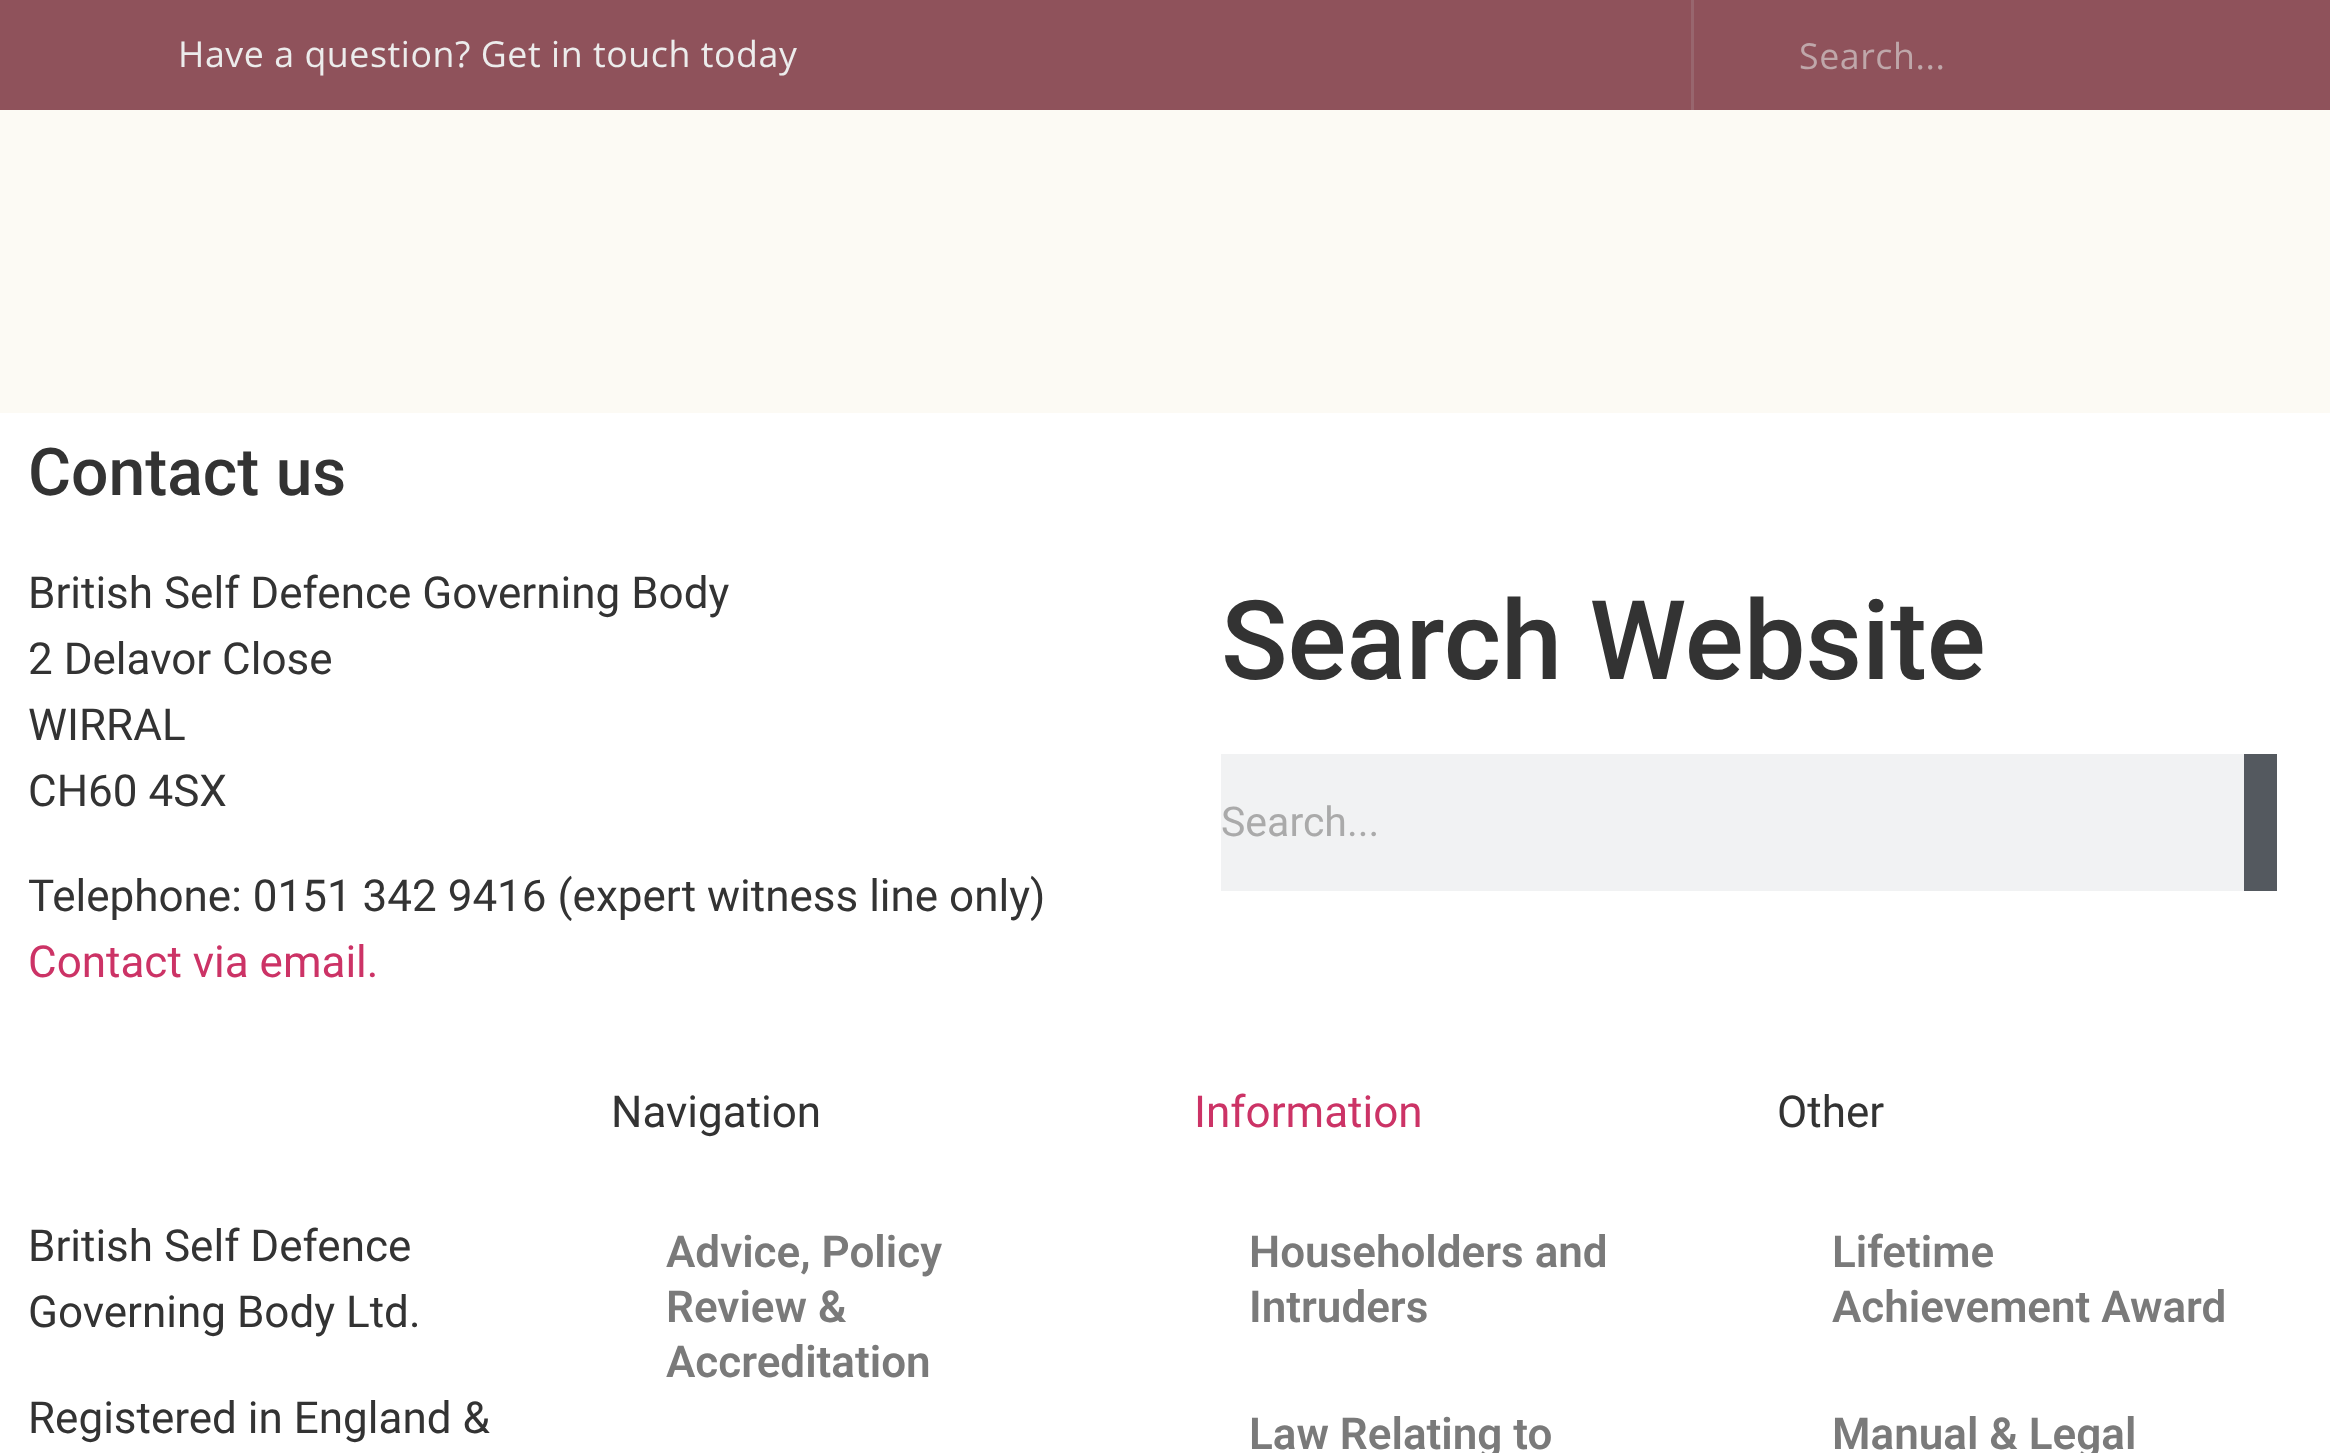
<svg xmlns="http://www.w3.org/2000/svg" width="2330" height="1453" viewBox="0 0 2330 1453">
  <style>
    .t1 { font: 35.75px Open Sans; letter-spacing: 0.55px; fill: #ececec; }
    .t2 { font: 35.75px Open Sans; letter-spacing: 0.55px; fill: #bfa7aa; }
    .t3 { font: 500 66px Roboto; fill: #333; }
    .t4 { font: 44px Roboto; fill: #333; }
    .t5 { font: 44px Roboto; fill: #c36; }
    .t6 { font: 500 110px Roboto; fill: #333; }
    .t7 { font: 41px Roboto; fill: #aaa; }
    .t8 { font: 600 44px Roboto; fill: #7a7a7a; }
  </style>
  <rect width="100%" height="100%" fill="#fff"/>
  <rect x="0" y="0" width="2330" height="110" fill="#8f525b"/>
  <text x="178" y="67" class="t1">Have a question? Get in touch today</text>
  <rect x="1691" y="0" width="3" height="110" fill="#98666e"/>
  <text x="1799" y="69" class="t2">Search...</text>
  <rect x="0" y="110" width="2330" height="303" fill="#fcfaf4"/>
  <text x="28" y="495" class="t3">Contact us</text>
  <text x="28" y="608" class="t4">British Self Defence Governing Body</text>
  <text x="28" y="674" class="t4">2 Delavor Close</text>
  <text x="28" y="740" class="t4">WIRRAL</text>
  <text x="28" y="806" class="t4">CH60 4SX</text>
  <text x="28" y="911" class="t4">Telephone: 0151 342 9416 (expert witness line only)</text>
  <text x="28" y="977" class="t5">Contact via email.</text>
  <text x="1221" y="679" class="t6">Search Website</text>
  <rect x="1221" y="754" width="1023" height="137" fill="#f1f2f3"/>
  <text x="1221" y="836" class="t7">Search...</text>
  <rect x="2244" y="754" width="33" height="137" fill="#54595f"/>
  <text x="28" y="1261" class="t4">British Self Defence</text>
  <text x="28" y="1327" class="t4">Governing Body Ltd.</text>
  <text x="28" y="1433" class="t4">Registered in England &amp;</text>
  <text x="611" y="1127" class="t4">Navigation</text>
  <text x="666" y="1267" class="t8">Advice, Policy</text>
  <text x="666" y="1322" class="t8">Review &amp;</text>
  <text x="666" y="1377" class="t8">Accreditation</text>
  <text x="1194" y="1127" class="t5">Information</text>
  <text x="1249" y="1267" class="t8">Householders and</text>
  <text x="1249" y="1322" class="t8">Intruders</text>
  <text x="1249" y="1449" class="t8">Law Relating to</text>
  <text x="1777" y="1127" class="t4">Other</text>
  <text x="1832" y="1267" class="t8">Lifetime</text>
  <text x="1832" y="1322" class="t8">Achievement Award</text>
  <text x="1832" y="1449" class="t8">Manual &amp; Legal</text>
</svg>
